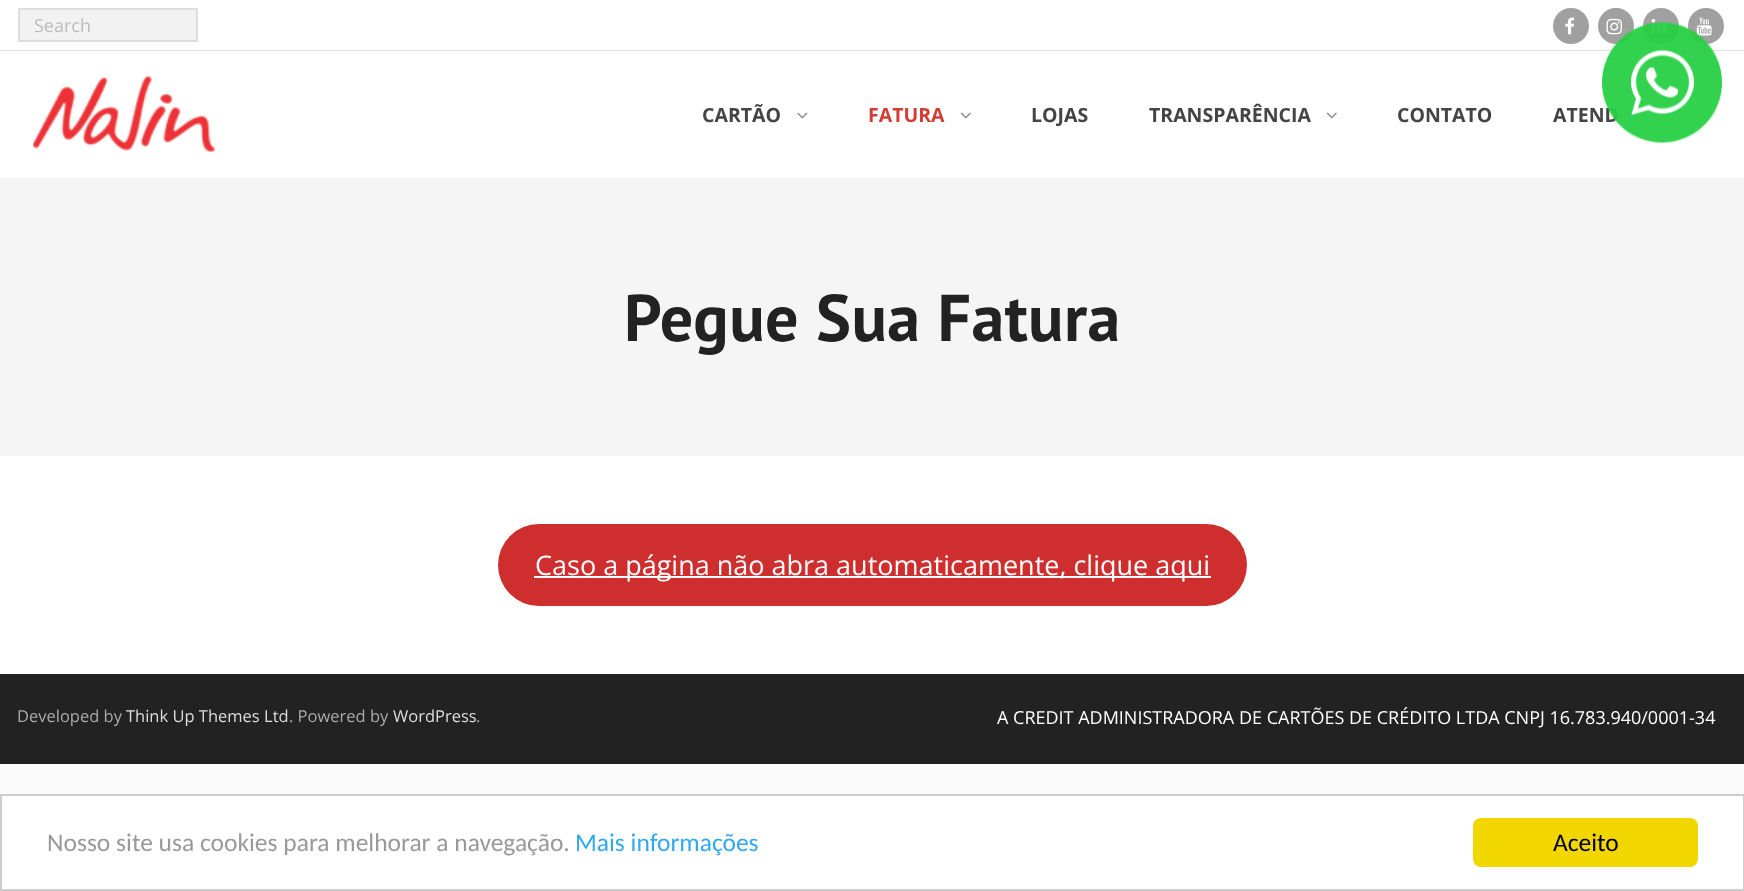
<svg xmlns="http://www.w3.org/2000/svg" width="1744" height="891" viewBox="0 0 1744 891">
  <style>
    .t1 { font: 18px Open Sans; fill: #bbb; }
    .t2 { font: bold 19.5px Open Sans; fill: #444; }
    .t3 { font: bold 19.5px Open Sans; fill: #d33d33; }
    .t4 { font: bold 66px PT Sans; letter-spacing: 0.4px; fill: #222; }
    .t5 { font: 27px Open Sans; fill: #fff; }
    .t6 { font: 16.5px Open Sans; fill: #aaa; }
    .t7 { font: 16.5px Open Sans; fill: #ddd; }
    .t8 { font: 18px Open Sans; fill: #fff; }
    .t9 { font: 25.5px Carlito; fill: #999; }
    .t10 { font: 25.5px Carlito; fill: #31a8f0; }
    .t11 { font: 25.5px Carlito; fill: #000; }
  </style>
  <defs>
    <clipPath id="clip1"><rect x="35" y="12" width="147" height="26"/></clipPath>
  </defs>
  <rect width="100%" height="100%" fill="#fafafa"/>
  <rect x="0" y="0" width="1744" height="674" fill="#fff"/>
  <rect x="0" y="50" width="1744" height="1" fill="#ddd"/>
  <rect x="19" y="9" width="178" height="32" fill="#f2f2f2" stroke="#ddd" stroke-width="2"/>
  <g clip-path="url(#clip1)">
    <text x="34" y="32" class="t1">Search</text>
  </g>
  <circle cx="1571" cy="26" r="18" fill="#a0a0a0"/>
  <image x="1565" y="17" width="10" height="18" href="images/1.png"/>
  <circle cx="1616" cy="26" r="18" fill="#a0a0a0"/>
  <image x="1606" y="18" width="16" height="17" href="images/2.png"/>
  <circle cx="1661" cy="26" r="18" fill="#a0a0a0"/>
  <image x="1651" y="19" width="16" height="15" href="images/3.png"/>
  <circle cx="1706" cy="26" r="18" fill="#a0a0a0"/>
  <image x="1696" y="17" width="16" height="19" href="images/4.png"/>
  <image x="33" y="76" width="182" height="76" href="images/5.png"/>
  <text x="702" y="122" class="t2">CARTÃO</text>
  <image x="797" y="112" width="11" height="7" href="images/6.png"/>
  <text x="868" y="122" class="t3">FATURA</text>
  <image x="960" y="112" width="11" height="7" href="images/7.png"/>
  <text x="1031" y="122" class="t2">LOJAS</text>
  <text x="1149" y="122" class="t2">TRANSPARÊNCIA</text>
  <image x="1326" y="112" width="11" height="7" href="images/7.png"/>
  <text x="1397" y="122" class="t2">CONTATO</text>
  <text x="1553" y="122" class="t2">ATEND</text>
  <rect x="0" y="177" width="1744" height="279" fill="#f5f5f5"/>
  <text x="624" y="341" class="t4">Pegue Sua Fatura</text>
  <rect x="498" y="524" width="749" height="82" rx="41" fill="#cf2e2e"/>
  <rect x="534" y="576" width="677" height="2" fill="#fff"/>
  <text x="535" y="575" class="t5">Caso a página não abra automaticamente, clique aqui</text>
  <rect x="0" y="674" width="1744" height="90" fill="#222"/>
  <text x="17" y="722" class="t6">Developed by</text>
  <text x="126" y="722" class="t7">Think Up Themes Ltd</text>
  <text x="289" y="722" class="t6">. Powered by</text>
  <text x="393" y="722" class="t7">WordPress</text>
  <text x="476" y="722" class="t6">.</text>
  <text x="997" y="724" class="t8">A CREDIT ADMINISTRADORA DE CARTÕES DE CRÉDITO LTDA CNPJ 16.783.940/0001-34</text>
  <image x="1602" y="22" width="120" height="121" href="images/8.png"/>
  <rect x="1" y="795" width="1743" height="95" fill="#fff" stroke="#ccc" stroke-width="2"/>
  <text x="47" y="851" class="t9">Nosso site usa cookies para melhorar a navegação.</text>
  <text x="575" y="851" class="t10">Mais informações</text>
  <rect x="1473" y="818" width="225" height="49" rx="8" fill="#f1d600"/>
  <text x="1553" y="851" class="t11">Aceito</text>
</svg>
